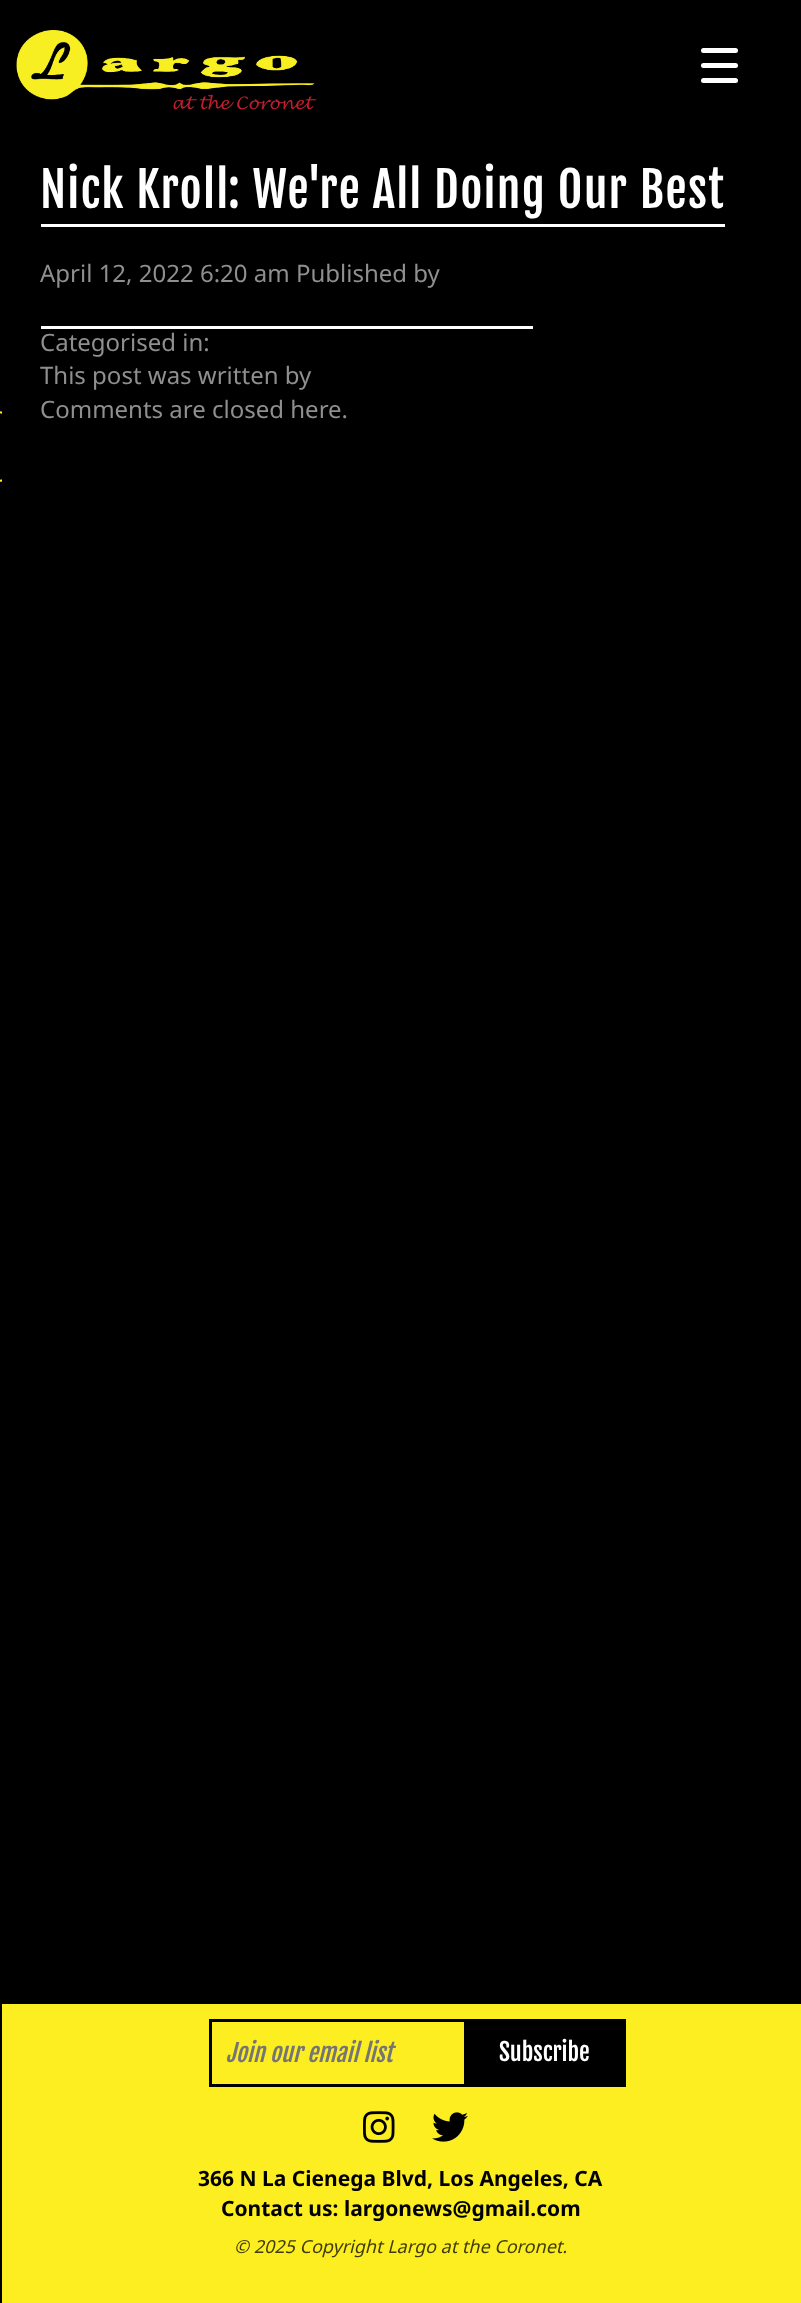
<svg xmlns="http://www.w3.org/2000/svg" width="801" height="2303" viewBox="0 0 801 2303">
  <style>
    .t1 { font: 48px Fjalla One; letter-spacing: 1.2px; fill: #fff; }
    .t2 { font: 24px Noto Sans; fill: #908e8e; }
    .t3 { font: italic 24px Fjalla One; fill: #757575; }
    .t4 { font: 24px Fjalla One; fill: #fff; }
    .t5 { font: bold 21px Noto Sans; fill: #000; }
    .t6 { font: italic 18px Noto Sans; fill: #3f3c08; }
  </style>
  <defs>
    <clipPath id="clip1"><rect x="0" y="0" width="2" height="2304"/></clipPath>
  </defs>
  <rect width="100%" height="100%" fill="#000"/>
  <rect x="701" y="63" width="37" height="5" rx="2.5" fill="#fff"/>
  <rect x="701" y="48" width="37" height="5" rx="2.5" fill="#fff"/>
  <rect x="701" y="78" width="37" height="5" rx="2.5" fill="#fff"/>
  <image x="16" y="30" width="301" height="80" href="images/1.png"/>
  <text x="40" y="208" class="t1">Nick Kroll: We're All Doing Our Best</text>
  <rect x="41" y="224" width="684" height="3" fill="#fff"/>
  <text x="40" y="282" class="t2">April 12, 2022 6:20 am Published by</text>
  <rect x="41" y="326" width="492" height="3" fill="#fff"/>
  <text x="40" y="351" class="t2">Categorised in:</text>
  <text x="40" y="384" class="t2">This post was written by</text>
  <text x="40" y="418" class="t2">Comments are closed here.</text>
  <g clip-path="url(#clip1)">
    <rect x="-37" y="412" width="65" height="69" rx="34.5" fill="none" stroke="#fdee21" stroke-width="2"/>
  </g>
  <rect x="2" y="2004" width="799" height="299" fill="#fdee21"/>
  <rect x="210.5" y="2020.5" width="282" height="65" fill="none" stroke="#000" stroke-width="3"/>
  <text x="226" y="2062" class="t3">Join our email list</text>
  <rect x="464" y="2019" width="162" height="68" fill="#000"/>
  <text x="499" y="2061" class="t4">Subscribe</text>
  <image x="363" y="2111" width="32" height="32" href="images/2.png"/>
  <image x="432" y="2112" width="36" height="30" href="images/3.png"/>
  <text x="198" y="2186" class="t5">366 N La Cienega Blvd, Los Angeles, CA</text>
  <text x="221" y="2216" class="t5">Contact us: largonews@gmail.com</text>
  <text x="234" y="2253" class="t6">© 2025 Copyright Largo at the Coronet.</text>
</svg>
